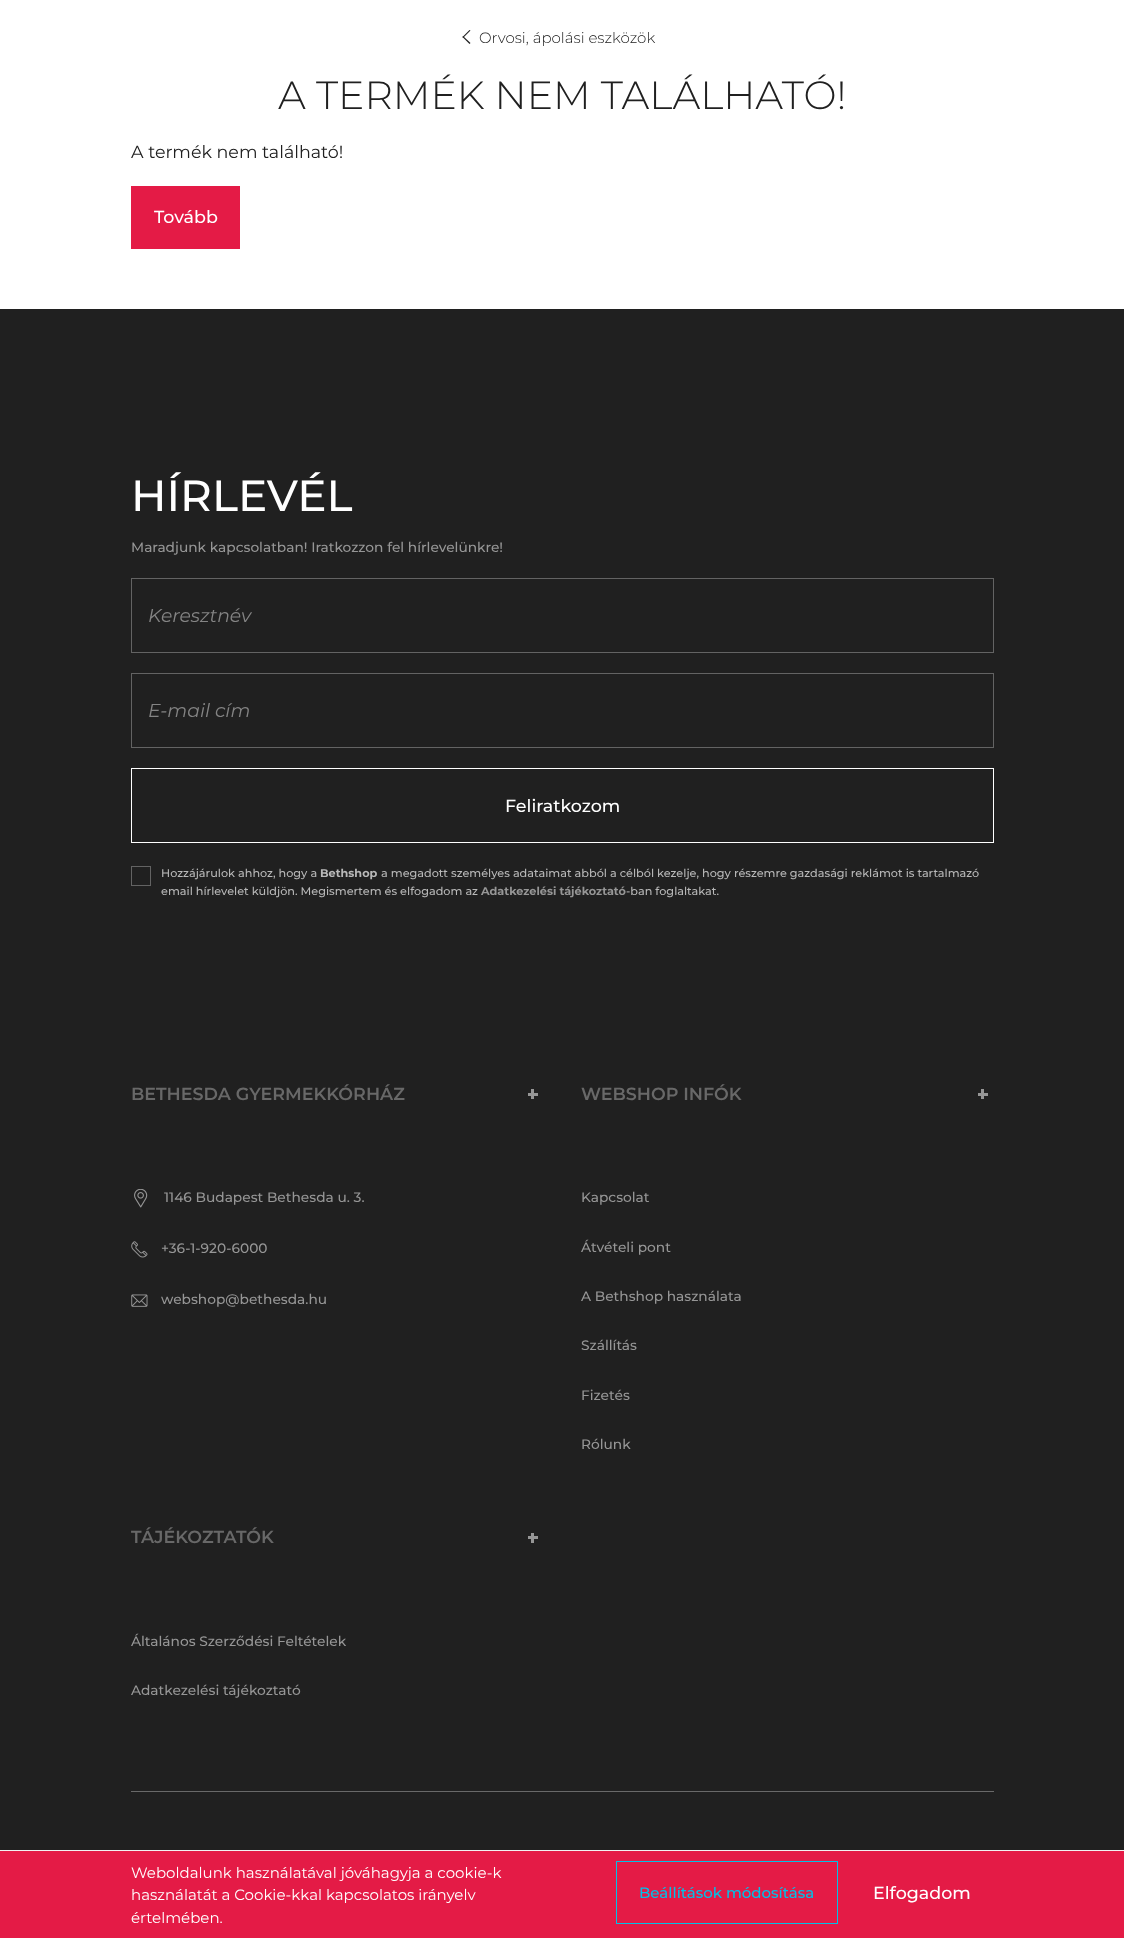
<svg xmlns="http://www.w3.org/2000/svg" width="1124" height="1938" viewBox="0 0 1124 1938">
  <style>
    .t1 { font: 300 15px Montserrat; fill: #202020; }
    .t2 { font: 300 39.4px Montserrat; fill: #202020; }
    .t3 { font: 17.5px Montserrat; fill: #202020; }
    .t4 { font: 500 17.5px Montserrat; fill: #fff; }
    .t5 { font: 500 43.75px Montserrat; fill: #fff; }
    .t6 { font: 500 13.75px Montserrat; fill: #969696; }
    .t7 { font: italic 18.75px Montserrat; fill: #848484; }
    .t8 { font: 500 11.25px Montserrat; fill: #b9b9b9; }
    .t9 { font: bold 11.25px Montserrat; fill: #b9b9b9; }
    .t10 { font: bold 11.25px Montserrat; fill: #969696; }
    .t11 { font: 600 17.5px Montserrat; fill: #686868; }
    .t12 { font: 15px Montserrat; fill: #fff; }
    .t13 { font: 500 15px Montserrat; fill: #00c1e8; }
  </style>
  <rect width="100%" height="100%" fill="#fff"/>
  <path d="M470.5 43L469.5 44L462.5 37L463 36Z" fill="#202020"/>
  <path d="M470.5 30.5L463 38L462.5 37L469.5 30Z" fill="#202020"/>
  <text x="479" y="43" class="t1">Orvosi, ápolási eszközök</text>
  <text x="278" y="109" class="t2">A TERMÉK NEM TALÁLHATÓ!</text>
  <text x="131" y="158" class="t3">A termék nem található!</text>
  <rect x="131" y="186" width="109" height="63" fill="#e41b46"/>
  <text x="154" y="223" class="t4">Tovább</text>
  <rect x="0" y="309" width="1124" height="1541" fill="#202020"/>
  <text x="131" y="511" class="t5">HÍRLEVÉL</text>
  <text x="131" y="552" class="t6">Maradjunk kapcsolatban! Iratkozzon fel hírlevelünkre!</text>
  <rect x="131.5" y="578.5" width="862" height="74" fill="none" stroke="#636363"/>
  <text x="148" y="622" class="t7">Keresztnév</text>
  <rect x="131.5" y="673.5" width="862" height="74" fill="none" stroke="#636363"/>
  <text x="148" y="717" class="t7">E-mail cím</text>
  <rect x="131.5" y="768.5" width="862" height="74" fill="none" stroke="#fff"/>
  <text x="505" y="812" class="t4">Feliratkozom</text>
  <rect x="131.5" y="866.5" width="19" height="19" fill="none" stroke="#636363"/>
  <text x="161" y="877" class="t8">Hozzájárulok ahhoz, hogy a</text>
  <text x="320" y="877" class="t9">Bethshop</text>
  <text x="381" y="877" class="t8">a megadott személyes adataimat abból a célból kezelje, hogy részemre gazdasági reklámot is tartalmazó</text>
  <text x="161" y="895" class="t8">email hírlevelet küldjön. Megismertem és elfogadom az</text>
  <text x="481" y="895" class="t10">Adatkezelési tájékoztató</text>
  <text x="626" y="895" class="t8">-ban foglaltakat.</text>
  <text x="131" y="1100" class="t11">BETHESDA GYERMEKKÓRHÁZ</text>
  <rect x="531" y="1089" width="3" height="10" fill="#969696"/>
  <rect x="528" y="1093" width="10" height="3" fill="#969696"/>
  <image x="134" y="1189" width="14" height="19" href="images/1.png"/>
  <text x="164" y="1202" class="t6">1146 Budapest Bethesda u. 3.</text>
  <image x="131" y="1241" width="17" height="17" href="images/2.png"/>
  <text x="161" y="1253" class="t6">+36-1-920-6000</text>
  <image x="131" y="1294" width="17" height="13" href="images/3.png"/>
  <text x="161" y="1304" class="t6">webshop@bethesda.hu</text>
  <text x="581" y="1100" class="t11">WEBSHOP INFÓK</text>
  <rect x="981" y="1089" width="3" height="10" fill="#969696"/>
  <rect x="978" y="1093" width="10" height="3" fill="#969696"/>
  <text x="581" y="1202" class="t6">Kapcsolat</text>
  <text x="581" y="1252" class="t6">Átvételi pont</text>
  <text x="581" y="1301" class="t6">A Bethshop használata</text>
  <text x="581" y="1350" class="t6">Szállítás</text>
  <text x="581" y="1400" class="t6">Fizetés</text>
  <text x="581" y="1449" class="t6">Rólunk</text>
  <text x="131" y="1543" class="t11">TÁJÉKOZTATÓK</text>
  <rect x="531" y="1533" width="3" height="10" fill="#969696"/>
  <rect x="528" y="1536" width="10" height="3" fill="#969696"/>
  <text x="131" y="1646" class="t6">Általános Szerződési Feltételek</text>
  <text x="131" y="1695" class="t6">Adatkezelési tájékoztató</text>
  <rect x="131" y="1791" width="863" height="1" fill="#696969"/>
  <rect x="0" y="1851" width="1124" height="87" fill="#e41b46"/>
  <rect x="0" y="1850" width="1124" height="1" fill="#f2f2f2"/>
  <text x="131" y="1878" class="t12">Weboldalunk használatával jóváhagyja a cookie-k</text>
  <text x="131" y="1900" class="t12">használatát a Cookie-kkal kapcsolatos irányelv</text>
  <text x="131" y="1923" class="t12">értelmében.</text>
  <rect x="616.5" y="1861.5" width="221" height="62" fill="none" stroke="#00c1e8"/>
  <text x="639" y="1898" class="t13">Beállítások módosítása</text>
  <text x="873" y="1899" class="t4">Elfogadom</text>
</svg>
